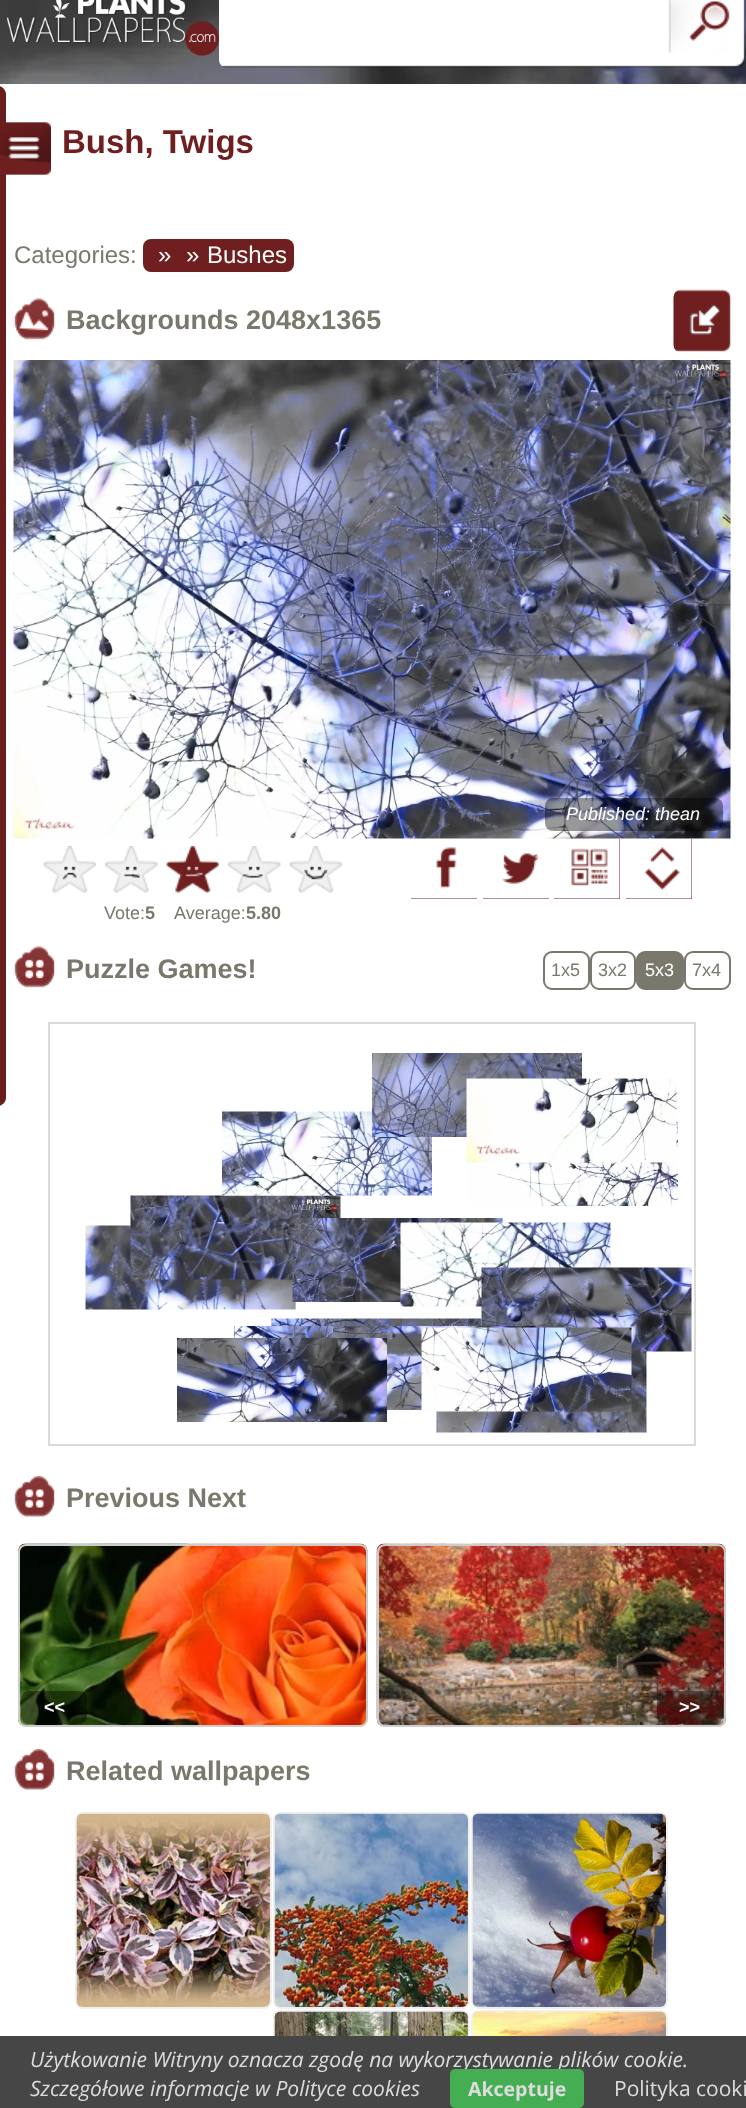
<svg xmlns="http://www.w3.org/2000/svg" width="746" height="2108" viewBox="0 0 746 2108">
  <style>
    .t1 { font: bold 33px Liberation Sans; fill: #6f1f1f; }
    .t2 { font: 24px Liberation Sans; fill: #7a776c; }
    .t3 { font: 24px Liberation Sans; fill: #fff; }
    .t4 { font: bold 27px Liberation Sans; fill: #7a776c; }
    .t5 { font: italic 18px Liberation Sans; fill: #fff; }
    .t6 { font: 18px Liberation Sans; fill: #7a776c; }
    .t7 { font: bold 18px Liberation Sans; fill: #7a776c; }
    .t8 { font: 18px Liberation Sans; fill: #fff; }
    .t9 { font: bold 18px Liberation Sans; fill: #fff; }
    .t10 { font: italic 21px Open Sans; fill: #ddd; }
    .t11 { font: bold 19.5px Open Sans; fill: #ddd; }
    .t12 { font: 21px Open Sans; fill: #ddd; }
  </style>
  <rect width="100%" height="100%" fill="#fff"/>
  <image x="0" y="0" width="746" height="84" href="images/1.png"/>
  <image x="6" y="0" width="213" height="56" href="images/2.png"/>
  <image x="219" y="0" width="527" height="68" href="images/3.png"/>
  <path d="M-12 90H-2C0 90 2 92 2 94V1098C2 1100 0 1102-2 1102H-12Z" fill="none" stroke="#691d1d" stroke-width="8"/>
  <image x="0" y="122" width="51" height="53" href="images/4.png"/>
  <text x="62" y="153" class="t1">Bush, Twigs</text>
  <text x="14" y="263" class="t2">Categories:</text>
  <rect x="143" y="239" width="151" height="33" rx="8" fill="#6f1f1f"/>
  <text x="158" y="263" class="t3">»</text>
  <text x="186" y="263" class="t3">»</text>
  <text x="207" y="263" class="t3">Bushes</text>
  <image x="14" y="298" width="41" height="42" href="images/5.png"/>
  <text x="66" y="329" class="t4">Backgrounds 2048x1365</text>
  <image x="673" y="289" width="58" height="63" href="images/6.png"/>
  <image x="13" y="360" width="718" height="479" href="images/7.png"/>
  <rect x="545" y="798" width="178" height="33" rx="8" fill="#00000066"/>
  <text x="566" y="820" class="t5">Published: thean</text>
  <rect x="411" y="847" width="66" height="52" fill="#6f1f1f"/>
  <image x="411" y="839" width="66" height="60" href="images/8.png"/>
  <rect x="483" y="853" width="66" height="46" fill="#6f1f1f"/>
  <image x="483" y="839" width="66" height="60" href="images/9.png"/>
  <rect x="554" y="839" width="66" height="60" fill="#6f1f1f"/>
  <image x="554" y="839" width="66" height="60" href="images/10.png"/>
  <rect x="626" y="839" width="66" height="60" fill="#6f1f1f"/>
  <image x="626" y="839" width="66" height="60" href="images/11.png"/>
  <image x="43" y="846" width="53" height="47" href="images/12.png"/>
  <image x="105" y="846" width="53" height="47" href="images/13.png"/>
  <image x="166" y="846" width="53" height="47" href="images/14.png"/>
  <image x="228" y="846" width="53" height="47" href="images/15.png"/>
  <image x="289" y="846" width="53" height="47" href="images/16.png"/>
  <text x="104" y="919" class="t6">Vote:</text>
  <text x="145" y="919" class="t7">5</text>
  <text x="174" y="919" class="t6">Average:</text>
  <text x="246" y="919" class="t7">5.80</text>
  <image x="14" y="946" width="41" height="42" href="images/17.png"/>
  <text x="66" y="978" class="t4">Puzzle Games!</text>
  <rect x="544" y="952" width="45" height="37" rx="8" fill="none" stroke="#7a776c" stroke-width="2"/>
  <text x="551" y="976" class="t6">1x5</text>
  <rect x="591" y="952" width="44" height="37" rx="8" fill="none" stroke="#7a776c" stroke-width="2"/>
  <text x="598" y="976" class="t6">3x2</text>
  <rect x="637" y="952" width="46" height="37" rx="8" fill="#7a776c" stroke="#7a776c" stroke-width="2"/>
  <text x="645" y="976" class="t8">5x3</text>
  <rect x="685" y="952" width="45" height="37" rx="8" fill="none" stroke="#7a776c" stroke-width="2"/>
  <text x="692" y="976" class="t6">7x4</text>
  <rect x="49" y="1023" width="646" height="422" fill="none" stroke="#dcd9d9" stroke-width="2"/>
  <image x="85" y="1225" width="211" height="85" href="images/25.png"/>
  <image x="130" y="1195" width="211" height="85" href="images/22.png"/>
  <image x="222" y="1111" width="210" height="85" href="images/19.png"/>
  <image x="372" y="1053" width="210" height="84" href="images/18.png"/>
  <image x="468" y="1122" width="210" height="84" href="images/21.png"/>
  <image x="466" y="1078" width="211" height="85" href="images/20.png"/>
  <image x="292" y="1218" width="211" height="84" href="images/23.png"/>
  <image x="400" y="1222" width="211" height="85" href="images/24.png"/>
  <image x="271" y="1318" width="211" height="8" href="images/26.png"/>
  <image x="436" y="1351" width="211" height="82" href="images/32.png"/>
  <image x="481" y="1267" width="211" height="85" href="images/27.png"/>
  <image x="234" y="1326" width="99" height="12" href="images/28.png"/>
  <image x="333" y="1326" width="210" height="84" href="images/29.png"/>
  <image x="177" y="1338" width="210" height="84" href="images/30.png"/>
  <image x="421" y="1327" width="211" height="85" href="images/31.png"/>
  <image x="14" y="1476" width="41" height="41" href="images/33.png"/>
  <text x="66" y="1507" class="t4">Previous Next</text>
  <image x="18" y="1543" width="350" height="184" href="images/34.png"/>
  <rect x="19" y="1545" width="348" height="181" rx="7" fill="none" stroke="#ccc" stroke-width="2"/>
  <rect x="21" y="1691" width="66" height="33" rx="8" fill="#00000066"/>
  <text x="44" y="1713" class="t9">&lt;&lt;</text>
  <image x="376" y="1543" width="350" height="184" href="images/35.png"/>
  <rect x="378" y="1545" width="347" height="181" rx="7" fill="none" stroke="#ccc" stroke-width="2"/>
  <rect x="657" y="1691" width="66" height="33" rx="8" fill="#00000066"/>
  <text x="679" y="1713" class="t9">&gt;&gt;</text>
  <image x="14" y="1749" width="41" height="41" href="images/33.png"/>
  <text x="66" y="1780" class="t4">Related wallpapers</text>
  <rect x="76" y="1813" width="195" height="195" rx="7" fill="none" stroke="#f0f0f0" stroke-width="2"/>
  <rect x="274" y="1813" width="195" height="195" rx="7" fill="none" stroke="#f0f0f0" stroke-width="2"/>
  <rect x="472" y="1813" width="195" height="195" rx="7" fill="none" stroke="#f0f0f0" stroke-width="2"/>
  <image x="76" y="1813" width="194" height="194" href="images/36.png"/>
  <image x="274" y="1813" width="194" height="194" href="images/37.png"/>
  <image x="472" y="1813" width="194" height="194" href="images/38.png"/>
  <rect x="274" y="2011" width="195" height="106" rx="7" fill="none" stroke="#f0f0f0" stroke-width="2"/>
  <rect x="472" y="2011" width="195" height="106" rx="7" fill="none" stroke="#f0f0f0" stroke-width="2"/>
  <image x="274" y="2011" width="194" height="25" href="images/39.png"/>
  <image x="472" y="2011" width="194" height="25" href="images/40.png"/>
  <rect x="0" y="2036" width="746" height="72" fill="#464646"/>
  <text x="30" y="2067" class="t10">Użytkowanie Witryny oznacza zgodę na wykorzystywanie plików cookie.</text>
  <text x="30" y="2096" class="t10">Szczegółowe informacje w Polityce cookies</text>
  <rect x="450" y="2069" width="134" height="39" rx="5" fill="#45ae52"/>
  <text x="468" y="2096" class="t11">Akceptuje</text>
  <text x="614" y="2096" class="t12">Polityka cooki</text>
</svg>
